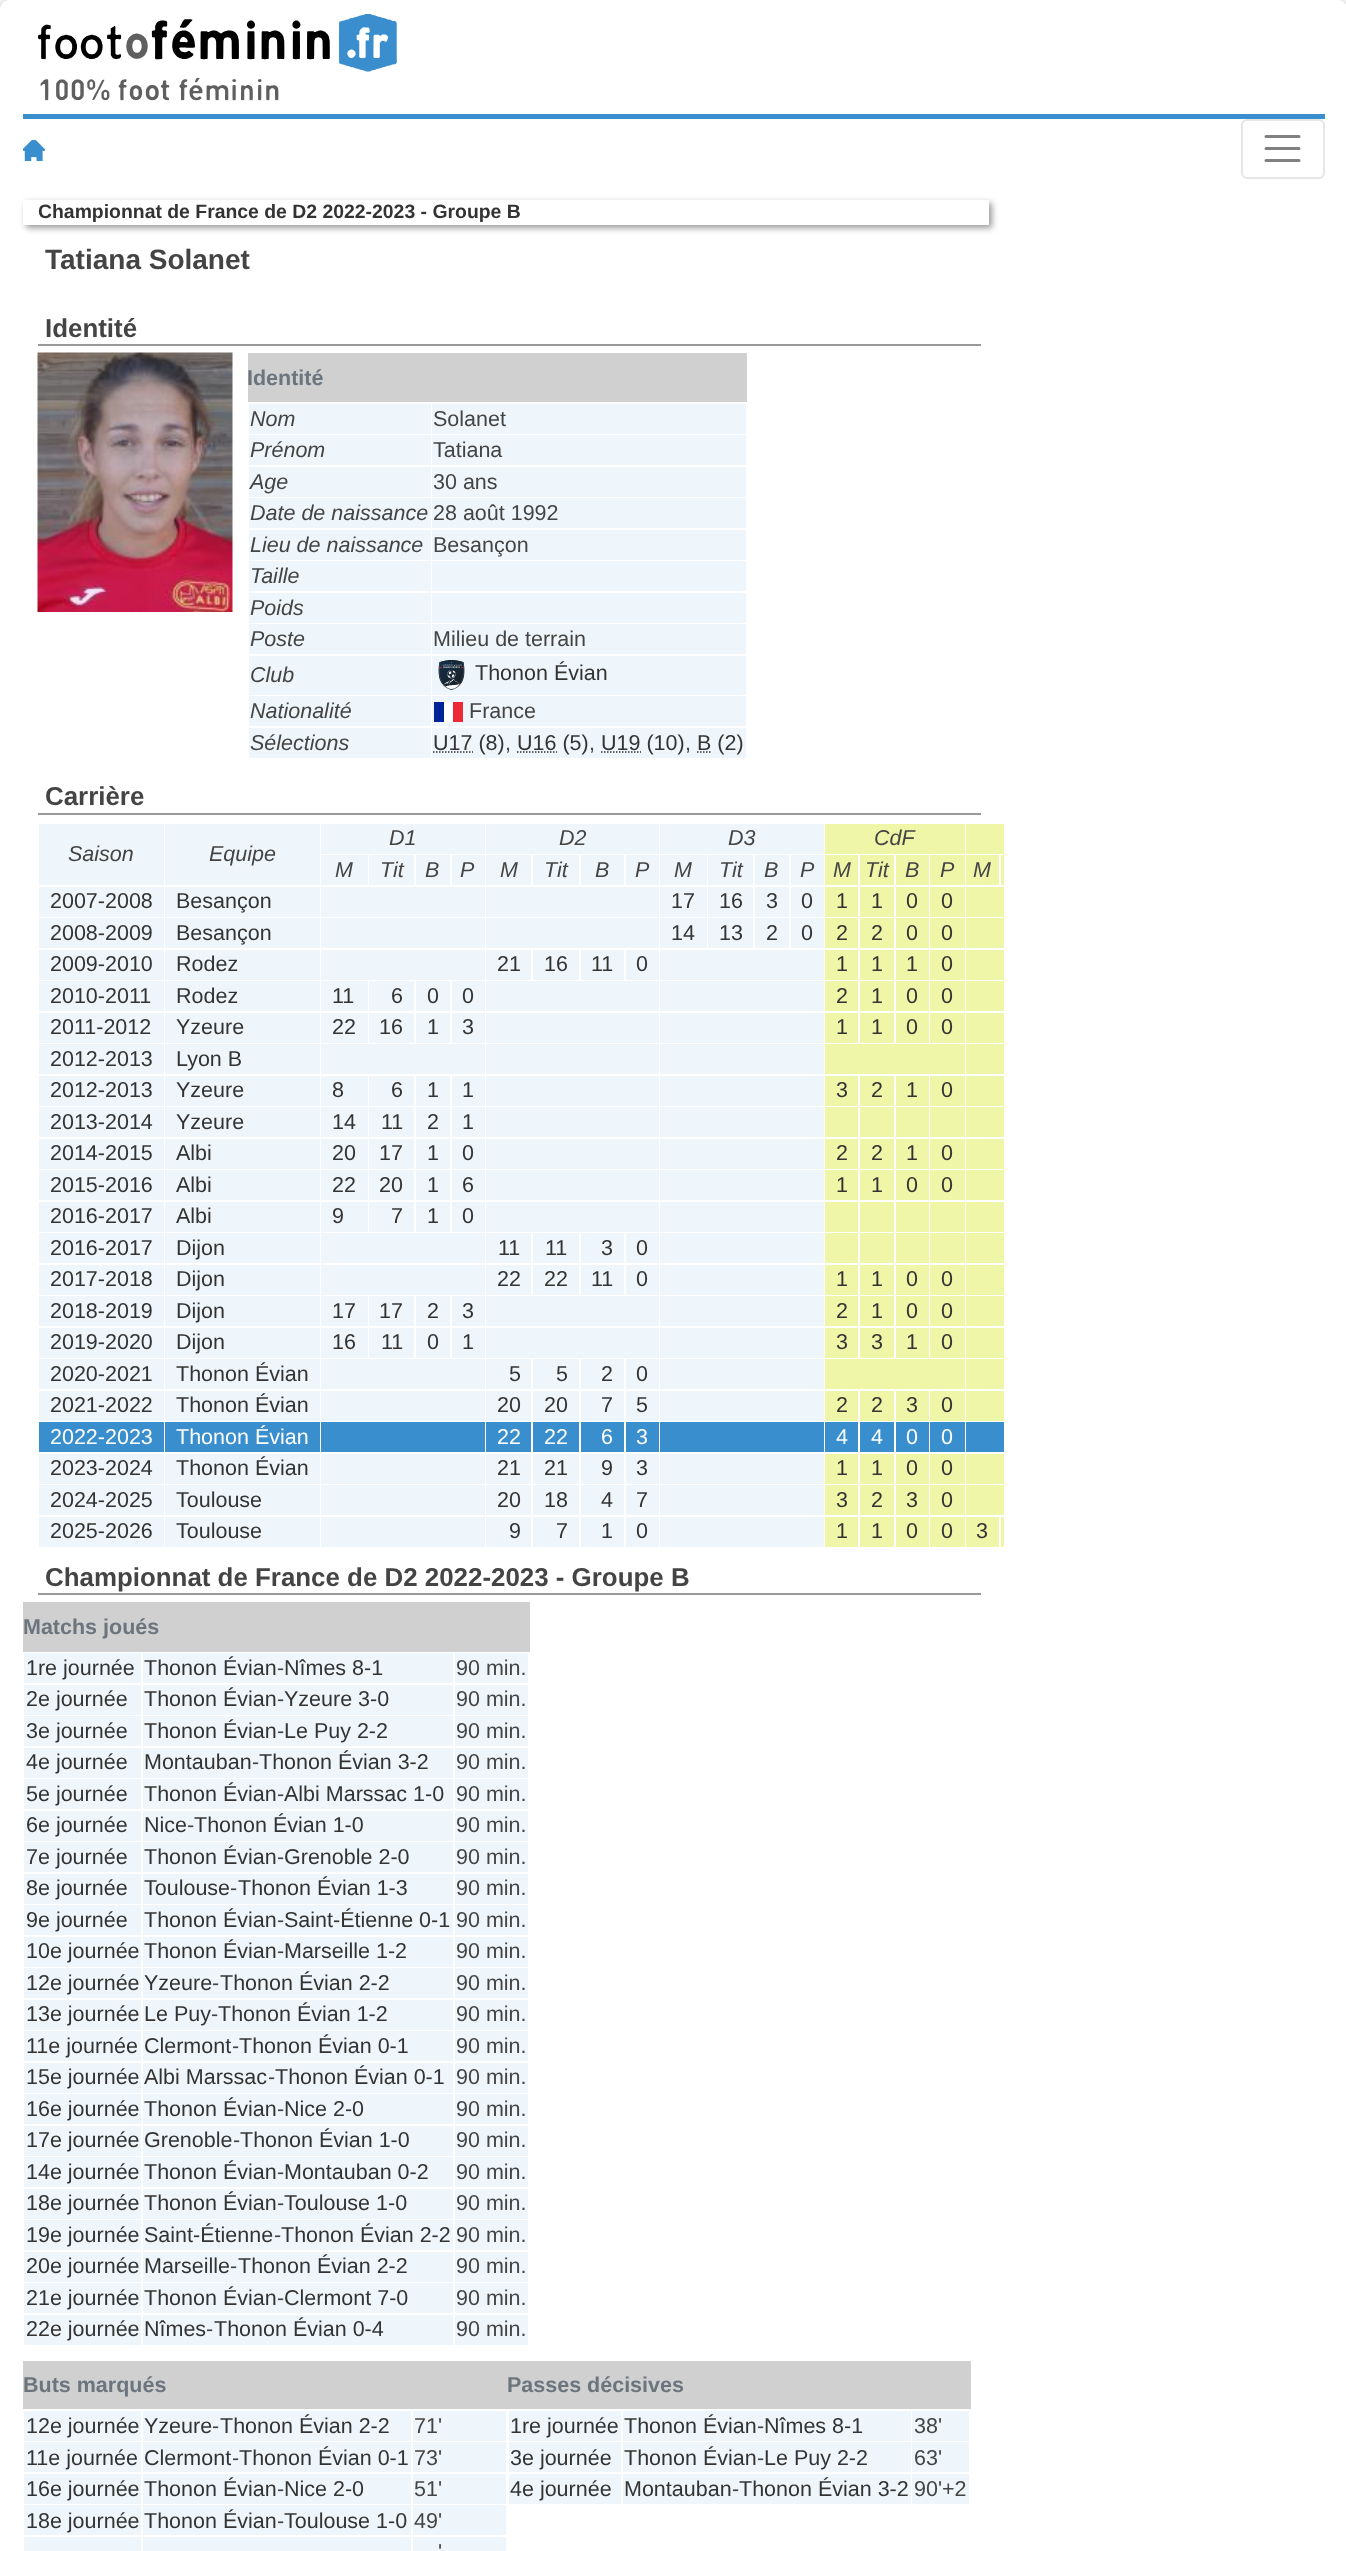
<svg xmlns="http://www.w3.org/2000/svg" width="1346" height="2551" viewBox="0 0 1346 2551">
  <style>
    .t1 { font: bold 19.4px Liberation Sans; fill: #333; }
    .t2 { font: bold 28px Liberation Sans; fill: #444; }
    .t3 { font: bold 25.9px Liberation Sans; fill: #444; }
    .t4 { font: bold 21.5px Liberation Sans; fill: #6c757d; }
    .t5 { font: italic 21.5px Liberation Sans; fill: #444; }
    .t6 { font: 21.5px Liberation Sans; fill: #444; }
    .t7 { font: 21.5px Liberation Sans; fill: #333; }
    .t8 { font: 21.5px Liberation Sans; fill: #fff; }
  </style>
  <defs>
    <clipPath id="clip1"><path d="M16 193H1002V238H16ZM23 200H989V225H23Z" clip-rule="evenodd"/></clipPath>
  </defs>
  <rect width="100%" height="100%" fill="#fff"/>
  <rect x="0" y="2" width="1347" height="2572" rx="9" fill="#999" filter="blur(4.5px)"/>
  <rect x="0" y="0" width="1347" height="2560" rx="9" fill="#fff"/>
  <image x="38" y="14" width="359" height="87" href="images/1.png"/>
  <rect x="23" y="114" width="1302" height="5" fill="#398ece"/>
  <image x="23" y="140" width="22" height="21" href="images/2.png"/>
  <rect x="1242" y="120" width="82" height="58" rx="5" fill="none" stroke="#e6e6e6" stroke-width="2"/>
  <path d="M1266 136.5H1299M1266 148.5H1299M1266 160.5H1299" fill="none" stroke="#808080" stroke-width="3" stroke-linecap="round"/>
  <g clip-path="url(#clip1)">
    <rect x="26" y="203" width="966" height="25" fill="#999" filter="blur(3px)"/>
  </g>
  <text x="38" y="218" class="t1">Championnat de France de D2 2022-2023 - Groupe B</text>
  <text x="45" y="269" class="t2">Tatiana Solanet</text>
  <rect x="38" y="344" width="943" height="2" fill="#999"/>
  <text x="45" y="337" class="t3">Identité</text>
  <image x="37" y="352" width="196" height="260" href="images/3.png"/>
  <rect x="248" y="353" width="499" height="49" fill="#d0d0d0"/>
  <text x="247" y="385" class="t4">Identité</text>
  <rect x="249" y="404" width="182" height="30" fill="#eff6fb"/>
  <text x="250" y="426" class="t5">Nom</text>
  <rect x="432" y="404" width="314" height="30" fill="#eff6fb"/>
  <text x="433" y="426" class="t6">Solanet</text>
  <rect x="249" y="435" width="182" height="30" fill="#eff6fb"/>
  <text x="250" y="457" class="t5">Prénom</text>
  <rect x="432" y="435" width="314" height="30" fill="#eff6fb"/>
  <text x="433" y="457" class="t6">Tatiana</text>
  <rect x="249" y="467" width="182" height="30" fill="#eff6fb"/>
  <text x="250" y="489" class="t5">Age</text>
  <rect x="432" y="467" width="314" height="30" fill="#eff6fb"/>
  <text x="433" y="489" class="t6">30 ans</text>
  <rect x="249" y="498" width="182" height="30" fill="#eff6fb"/>
  <text x="250" y="520" class="t5">Date de naissance</text>
  <rect x="432" y="498" width="314" height="30" fill="#eff6fb"/>
  <text x="433" y="520" class="t6">28 août 1992</text>
  <rect x="249" y="530" width="182" height="30" fill="#eff6fb"/>
  <text x="250" y="552" class="t5">Lieu de naissance</text>
  <rect x="432" y="530" width="314" height="30" fill="#eff6fb"/>
  <text x="433" y="552" class="t6">Besançon</text>
  <rect x="249" y="561" width="182" height="30" fill="#eff6fb"/>
  <text x="250" y="583" class="t5">Taille</text>
  <rect x="432" y="561" width="314" height="30" fill="#eff6fb"/>
  <rect x="249" y="593" width="182" height="30" fill="#eff6fb"/>
  <text x="250" y="615" class="t5">Poids</text>
  <rect x="432" y="593" width="314" height="30" fill="#eff6fb"/>
  <rect x="249" y="624" width="182" height="30" fill="#eff6fb"/>
  <text x="250" y="646" class="t5">Poste</text>
  <rect x="432" y="624" width="314" height="30" fill="#eff6fb"/>
  <text x="433" y="646" class="t6">Milieu de terrain</text>
  <rect x="249" y="656" width="182" height="39" fill="#eff6fb"/>
  <text x="250" y="682" class="t5">Club</text>
  <rect x="432" y="656" width="314" height="39" fill="#eff6fb"/>
  <image x="438" y="660" width="27" height="30" href="images/4.png"/>
  <text x="475" y="680" class="t7">Thonon Évian</text>
  <rect x="249" y="696" width="182" height="30" fill="#eff6fb"/>
  <text x="250" y="718" class="t5">Nationalité</text>
  <rect x="432" y="696" width="314" height="30" fill="#eff6fb"/>
  <rect x="434" y="702" width="10" height="20" fill="#002395"/>
  <rect x="444" y="702" width="9" height="20" fill="#fff"/>
  <rect x="453" y="702" width="10" height="20" fill="#ed2939"/>
  <text x="469" y="718" class="t6">France</text>
  <rect x="249" y="728" width="182" height="30" fill="#eff6fb"/>
  <text x="250" y="750" class="t5">Sélections</text>
  <rect x="432" y="728" width="314" height="30" fill="#eff6fb"/>
  <path d="M433 752H473" fill="none" stroke="#333" stroke-width="1.5" stroke-dasharray="1.5 1.5"/>
  <text x="433" y="750" class="t7">U17 (8)</text>
  <text x="505" y="750" class="t6">,</text>
  <path d="M517 752H557" fill="none" stroke="#333" stroke-width="1.5" stroke-dasharray="1.5 1.5"/>
  <text x="517" y="750" class="t7">U16 (5)</text>
  <text x="589" y="750" class="t6">,</text>
  <path d="M601 752H641" fill="none" stroke="#333" stroke-width="1.5" stroke-dasharray="1.5 1.5"/>
  <text x="601" y="750" class="t7">U19 (10)</text>
  <text x="685" y="750" class="t6">,</text>
  <path d="M697 752H711.5" fill="none" stroke="#333" stroke-width="1.5" stroke-dasharray="1.5 1.5"/>
  <text x="697" y="750" class="t7">B (2)</text>
  <rect x="38" y="813" width="943" height="2" fill="#999"/>
  <text x="45" y="805" class="t3">Carrière</text>
  <rect x="321" y="824" width="164" height="30" fill="#eff6fb"/>
  <text x="389" y="845" class="t5">D1</text>
  <rect x="486" y="824" width="173" height="30" fill="#eff6fb"/>
  <text x="559" y="845" class="t5">D2</text>
  <rect x="660" y="824" width="164" height="30" fill="#eff6fb"/>
  <text x="728" y="845" class="t5">D3</text>
  <rect x="825" y="824" width="140" height="30" fill="#eff6a8"/>
  <text x="874" y="845" class="t5">CdF</text>
  <rect x="966" y="824" width="38" height="30" fill="#eff6a8"/>
  <rect x="39" y="824" width="125" height="61" fill="#eff6fb"/>
  <text x="68" y="861" class="t5">Saison</text>
  <rect x="165" y="824" width="155" height="61" fill="#eff6fb"/>
  <text x="209" y="861" class="t5">Equipe</text>
  <rect x="321" y="855" width="47" height="30" fill="#eff6fb"/>
  <text x="335" y="877" class="t5">M</text>
  <rect x="369" y="855" width="45" height="30" fill="#eff6fb"/>
  <text x="380" y="877" class="t5">Tit</text>
  <rect x="416" y="855" width="34" height="30" fill="#eff6fb"/>
  <text x="425" y="877" class="t5">B</text>
  <rect x="452" y="855" width="33" height="30" fill="#eff6fb"/>
  <text x="460" y="877" class="t5">P</text>
  <rect x="486" y="855" width="45" height="30" fill="#eff6fb"/>
  <text x="500" y="877" class="t5">M</text>
  <rect x="533" y="855" width="46" height="30" fill="#eff6fb"/>
  <text x="544" y="877" class="t5">Tit</text>
  <rect x="581" y="855" width="43" height="30" fill="#eff6fb"/>
  <text x="595" y="877" class="t5">B</text>
  <rect x="626" y="855" width="33" height="30" fill="#eff6fb"/>
  <text x="635" y="877" class="t5">P</text>
  <rect x="660" y="855" width="47" height="30" fill="#eff6fb"/>
  <text x="674" y="877" class="t5">M</text>
  <rect x="708" y="855" width="45" height="30" fill="#eff6fb"/>
  <text x="719" y="877" class="t5">Tit</text>
  <rect x="755" y="855" width="34" height="30" fill="#eff6fb"/>
  <text x="764" y="877" class="t5">B</text>
  <rect x="791" y="855" width="33" height="30" fill="#eff6fb"/>
  <text x="800" y="877" class="t5">P</text>
  <rect x="825" y="855" width="33" height="30" fill="#eff6a8"/>
  <text x="833" y="877" class="t5">M</text>
  <rect x="860" y="855" width="34" height="30" fill="#eff6a8"/>
  <text x="865" y="877" class="t5">Tit</text>
  <rect x="896" y="855" width="33" height="30" fill="#eff6a8"/>
  <text x="905" y="877" class="t5">B</text>
  <rect x="930" y="855" width="35" height="30" fill="#eff6a8"/>
  <text x="940" y="877" class="t5">P</text>
  <rect x="966" y="855" width="33" height="30" fill="#eff6a8"/>
  <text x="973" y="877" class="t5">M</text>
  <rect x="1001" y="855" width="3" height="30" fill="#eff6a8"/>
  <rect x="39" y="887" width="125" height="30" fill="#eff6fb"/>
  <text x="50" y="908" class="t7">2007-2008</text>
  <rect x="165" y="887" width="155" height="30" fill="#eff6fb"/>
  <text x="176" y="908" class="t7">Besançon</text>
  <rect x="321" y="887" width="164" height="30" fill="#eff6fb"/>
  <rect x="486" y="887" width="173" height="30" fill="#eff6fb"/>
  <rect x="660" y="887" width="47" height="30" fill="#eff6fb"/>
  <text x="671" y="908" class="t7">17</text>
  <rect x="708" y="887" width="45" height="30" fill="#eff6fb"/>
  <text x="719" y="908" class="t7">16</text>
  <rect x="755" y="887" width="34" height="30" fill="#eff6fb"/>
  <text x="766" y="908" class="t7">3</text>
  <rect x="791" y="887" width="33" height="30" fill="#eff6fb"/>
  <text x="801" y="908" class="t7">0</text>
  <rect x="825" y="887" width="33" height="30" fill="#eff6a8"/>
  <text x="836" y="908" class="t7">1</text>
  <rect x="860" y="887" width="34" height="30" fill="#eff6a8"/>
  <text x="871" y="908" class="t7">1</text>
  <rect x="896" y="887" width="33" height="30" fill="#eff6a8"/>
  <text x="906" y="908" class="t7">0</text>
  <rect x="930" y="887" width="35" height="30" fill="#eff6a8"/>
  <text x="941" y="908" class="t7">0</text>
  <rect x="966" y="887" width="38" height="30" fill="#eff6a8"/>
  <rect x="39" y="918" width="125" height="30" fill="#eff6fb"/>
  <text x="50" y="940" class="t7">2008-2009</text>
  <rect x="165" y="918" width="155" height="30" fill="#eff6fb"/>
  <text x="176" y="940" class="t7">Besançon</text>
  <rect x="321" y="918" width="164" height="30" fill="#eff6fb"/>
  <rect x="486" y="918" width="173" height="30" fill="#eff6fb"/>
  <rect x="660" y="918" width="47" height="30" fill="#eff6fb"/>
  <text x="671" y="940" class="t7">14</text>
  <rect x="708" y="918" width="45" height="30" fill="#eff6fb"/>
  <text x="719" y="940" class="t7">13</text>
  <rect x="755" y="918" width="34" height="30" fill="#eff6fb"/>
  <text x="766" y="940" class="t7">2</text>
  <rect x="791" y="918" width="33" height="30" fill="#eff6fb"/>
  <text x="801" y="940" class="t7">0</text>
  <rect x="825" y="918" width="33" height="30" fill="#eff6a8"/>
  <text x="836" y="940" class="t7">2</text>
  <rect x="860" y="918" width="34" height="30" fill="#eff6a8"/>
  <text x="871" y="940" class="t7">2</text>
  <rect x="896" y="918" width="33" height="30" fill="#eff6a8"/>
  <text x="906" y="940" class="t7">0</text>
  <rect x="930" y="918" width="35" height="30" fill="#eff6a8"/>
  <text x="941" y="940" class="t7">0</text>
  <rect x="966" y="918" width="38" height="30" fill="#eff6a8"/>
  <rect x="39" y="950" width="125" height="30" fill="#eff6fb"/>
  <text x="50" y="971" class="t7">2009-2010</text>
  <rect x="165" y="950" width="155" height="30" fill="#eff6fb"/>
  <text x="176" y="971" class="t7">Rodez</text>
  <rect x="321" y="950" width="164" height="30" fill="#eff6fb"/>
  <rect x="486" y="950" width="45" height="30" fill="#eff6fb"/>
  <text x="497" y="971" class="t7">21</text>
  <rect x="533" y="950" width="46" height="30" fill="#eff6fb"/>
  <text x="544" y="971" class="t7">16</text>
  <rect x="581" y="950" width="43" height="30" fill="#eff6fb"/>
  <text x="591" y="971" class="t7">11</text>
  <rect x="626" y="950" width="33" height="30" fill="#eff6fb"/>
  <text x="636" y="971" class="t7">0</text>
  <rect x="660" y="950" width="164" height="30" fill="#eff6fb"/>
  <rect x="825" y="950" width="33" height="30" fill="#eff6a8"/>
  <text x="836" y="971" class="t7">1</text>
  <rect x="860" y="950" width="34" height="30" fill="#eff6a8"/>
  <text x="871" y="971" class="t7">1</text>
  <rect x="896" y="950" width="33" height="30" fill="#eff6a8"/>
  <text x="906" y="971" class="t7">1</text>
  <rect x="930" y="950" width="35" height="30" fill="#eff6a8"/>
  <text x="941" y="971" class="t7">0</text>
  <rect x="966" y="950" width="38" height="30" fill="#eff6a8"/>
  <rect x="39" y="981" width="125" height="30" fill="#eff6fb"/>
  <text x="50" y="1003" class="t7">2010-2011</text>
  <rect x="165" y="981" width="155" height="30" fill="#eff6fb"/>
  <text x="176" y="1003" class="t7">Rodez</text>
  <rect x="321" y="981" width="47" height="30" fill="#eff6fb"/>
  <text x="332" y="1003" class="t7">11</text>
  <rect x="369" y="981" width="45" height="30" fill="#eff6fb"/>
  <text x="391" y="1003" class="t7">6</text>
  <rect x="416" y="981" width="34" height="30" fill="#eff6fb"/>
  <text x="427" y="1003" class="t7">0</text>
  <rect x="452" y="981" width="33" height="30" fill="#eff6fb"/>
  <text x="462" y="1003" class="t7">0</text>
  <rect x="486" y="981" width="173" height="30" fill="#eff6fb"/>
  <rect x="660" y="981" width="164" height="30" fill="#eff6fb"/>
  <rect x="825" y="981" width="33" height="30" fill="#eff6a8"/>
  <text x="836" y="1003" class="t7">2</text>
  <rect x="860" y="981" width="34" height="30" fill="#eff6a8"/>
  <text x="871" y="1003" class="t7">1</text>
  <rect x="896" y="981" width="33" height="30" fill="#eff6a8"/>
  <text x="906" y="1003" class="t7">0</text>
  <rect x="930" y="981" width="35" height="30" fill="#eff6a8"/>
  <text x="941" y="1003" class="t7">0</text>
  <rect x="966" y="981" width="38" height="30" fill="#eff6a8"/>
  <rect x="39" y="1013" width="125" height="30" fill="#eff6fb"/>
  <text x="50" y="1034" class="t7">2011-2012</text>
  <rect x="165" y="1013" width="155" height="30" fill="#eff6fb"/>
  <text x="176" y="1034" class="t7">Yzeure</text>
  <rect x="321" y="1013" width="47" height="30" fill="#eff6fb"/>
  <text x="332" y="1034" class="t7">22</text>
  <rect x="369" y="1013" width="45" height="30" fill="#eff6fb"/>
  <text x="379" y="1034" class="t7">16</text>
  <rect x="416" y="1013" width="34" height="30" fill="#eff6fb"/>
  <text x="427" y="1034" class="t7">1</text>
  <rect x="452" y="1013" width="33" height="30" fill="#eff6fb"/>
  <text x="462" y="1034" class="t7">3</text>
  <rect x="486" y="1013" width="173" height="30" fill="#eff6fb"/>
  <rect x="660" y="1013" width="164" height="30" fill="#eff6fb"/>
  <rect x="825" y="1013" width="33" height="30" fill="#eff6a8"/>
  <text x="836" y="1034" class="t7">1</text>
  <rect x="860" y="1013" width="34" height="30" fill="#eff6a8"/>
  <text x="871" y="1034" class="t7">1</text>
  <rect x="896" y="1013" width="33" height="30" fill="#eff6a8"/>
  <text x="906" y="1034" class="t7">0</text>
  <rect x="930" y="1013" width="35" height="30" fill="#eff6a8"/>
  <text x="941" y="1034" class="t7">0</text>
  <rect x="966" y="1013" width="38" height="30" fill="#eff6a8"/>
  <rect x="39" y="1044" width="125" height="30" fill="#eff6fb"/>
  <text x="50" y="1066" class="t7">2012-2013</text>
  <rect x="165" y="1044" width="155" height="30" fill="#eff6fb"/>
  <text x="176" y="1066" class="t7">Lyon B</text>
  <rect x="321" y="1044" width="164" height="30" fill="#eff6fb"/>
  <rect x="486" y="1044" width="173" height="30" fill="#eff6fb"/>
  <rect x="660" y="1044" width="164" height="30" fill="#eff6fb"/>
  <rect x="825" y="1044" width="140" height="30" fill="#eff6a8"/>
  <rect x="966" y="1044" width="38" height="30" fill="#eff6a8"/>
  <rect x="39" y="1076" width="125" height="30" fill="#eff6fb"/>
  <text x="50" y="1097" class="t7">2012-2013</text>
  <rect x="165" y="1076" width="155" height="30" fill="#eff6fb"/>
  <text x="176" y="1097" class="t7">Yzeure</text>
  <rect x="321" y="1076" width="47" height="30" fill="#eff6fb"/>
  <text x="332" y="1097" class="t7">8</text>
  <rect x="369" y="1076" width="45" height="30" fill="#eff6fb"/>
  <text x="391" y="1097" class="t7">6</text>
  <rect x="416" y="1076" width="34" height="30" fill="#eff6fb"/>
  <text x="427" y="1097" class="t7">1</text>
  <rect x="452" y="1076" width="33" height="30" fill="#eff6fb"/>
  <text x="462" y="1097" class="t7">1</text>
  <rect x="486" y="1076" width="173" height="30" fill="#eff6fb"/>
  <rect x="660" y="1076" width="164" height="30" fill="#eff6fb"/>
  <rect x="825" y="1076" width="33" height="30" fill="#eff6a8"/>
  <text x="836" y="1097" class="t7">3</text>
  <rect x="860" y="1076" width="34" height="30" fill="#eff6a8"/>
  <text x="871" y="1097" class="t7">2</text>
  <rect x="896" y="1076" width="33" height="30" fill="#eff6a8"/>
  <text x="906" y="1097" class="t7">1</text>
  <rect x="930" y="1076" width="35" height="30" fill="#eff6a8"/>
  <text x="941" y="1097" class="t7">0</text>
  <rect x="966" y="1076" width="38" height="30" fill="#eff6a8"/>
  <rect x="39" y="1107" width="125" height="30" fill="#eff6fb"/>
  <text x="50" y="1129" class="t7">2013-2014</text>
  <rect x="165" y="1107" width="155" height="30" fill="#eff6fb"/>
  <text x="176" y="1129" class="t7">Yzeure</text>
  <rect x="321" y="1107" width="47" height="30" fill="#eff6fb"/>
  <text x="332" y="1129" class="t7">14</text>
  <rect x="369" y="1107" width="45" height="30" fill="#eff6fb"/>
  <text x="381" y="1129" class="t7">11</text>
  <rect x="416" y="1107" width="34" height="30" fill="#eff6fb"/>
  <text x="427" y="1129" class="t7">2</text>
  <rect x="452" y="1107" width="33" height="30" fill="#eff6fb"/>
  <text x="462" y="1129" class="t7">1</text>
  <rect x="486" y="1107" width="173" height="30" fill="#eff6fb"/>
  <rect x="660" y="1107" width="164" height="30" fill="#eff6fb"/>
  <rect x="825" y="1107" width="33" height="30" fill="#eff6a8"/>
  <rect x="860" y="1107" width="34" height="30" fill="#eff6a8"/>
  <rect x="896" y="1107" width="33" height="30" fill="#eff6a8"/>
  <rect x="930" y="1107" width="35" height="30" fill="#eff6a8"/>
  <rect x="966" y="1107" width="38" height="30" fill="#eff6a8"/>
  <rect x="39" y="1139" width="125" height="30" fill="#eff6fb"/>
  <text x="50" y="1160" class="t7">2014-2015</text>
  <rect x="165" y="1139" width="155" height="30" fill="#eff6fb"/>
  <text x="176" y="1160" class="t7">Albi</text>
  <rect x="321" y="1139" width="47" height="30" fill="#eff6fb"/>
  <text x="332" y="1160" class="t7">20</text>
  <rect x="369" y="1139" width="45" height="30" fill="#eff6fb"/>
  <text x="379" y="1160" class="t7">17</text>
  <rect x="416" y="1139" width="34" height="30" fill="#eff6fb"/>
  <text x="427" y="1160" class="t7">1</text>
  <rect x="452" y="1139" width="33" height="30" fill="#eff6fb"/>
  <text x="462" y="1160" class="t7">0</text>
  <rect x="486" y="1139" width="173" height="30" fill="#eff6fb"/>
  <rect x="660" y="1139" width="164" height="30" fill="#eff6fb"/>
  <rect x="825" y="1139" width="33" height="30" fill="#eff6a8"/>
  <text x="836" y="1160" class="t7">2</text>
  <rect x="860" y="1139" width="34" height="30" fill="#eff6a8"/>
  <text x="871" y="1160" class="t7">2</text>
  <rect x="896" y="1139" width="33" height="30" fill="#eff6a8"/>
  <text x="906" y="1160" class="t7">1</text>
  <rect x="930" y="1139" width="35" height="30" fill="#eff6a8"/>
  <text x="941" y="1160" class="t7">0</text>
  <rect x="966" y="1139" width="38" height="30" fill="#eff6a8"/>
  <rect x="39" y="1170" width="125" height="30" fill="#eff6fb"/>
  <text x="50" y="1192" class="t7">2015-2016</text>
  <rect x="165" y="1170" width="155" height="30" fill="#eff6fb"/>
  <text x="176" y="1192" class="t7">Albi</text>
  <rect x="321" y="1170" width="47" height="30" fill="#eff6fb"/>
  <text x="332" y="1192" class="t7">22</text>
  <rect x="369" y="1170" width="45" height="30" fill="#eff6fb"/>
  <text x="379" y="1192" class="t7">20</text>
  <rect x="416" y="1170" width="34" height="30" fill="#eff6fb"/>
  <text x="427" y="1192" class="t7">1</text>
  <rect x="452" y="1170" width="33" height="30" fill="#eff6fb"/>
  <text x="462" y="1192" class="t7">6</text>
  <rect x="486" y="1170" width="173" height="30" fill="#eff6fb"/>
  <rect x="660" y="1170" width="164" height="30" fill="#eff6fb"/>
  <rect x="825" y="1170" width="33" height="30" fill="#eff6a8"/>
  <text x="836" y="1192" class="t7">1</text>
  <rect x="860" y="1170" width="34" height="30" fill="#eff6a8"/>
  <text x="871" y="1192" class="t7">1</text>
  <rect x="896" y="1170" width="33" height="30" fill="#eff6a8"/>
  <text x="906" y="1192" class="t7">0</text>
  <rect x="930" y="1170" width="35" height="30" fill="#eff6a8"/>
  <text x="941" y="1192" class="t7">0</text>
  <rect x="966" y="1170" width="38" height="30" fill="#eff6a8"/>
  <rect x="39" y="1202" width="125" height="30" fill="#eff6fb"/>
  <text x="50" y="1223" class="t7">2016-2017</text>
  <rect x="165" y="1202" width="155" height="30" fill="#eff6fb"/>
  <text x="176" y="1223" class="t7">Albi</text>
  <rect x="321" y="1202" width="47" height="30" fill="#eff6fb"/>
  <text x="332" y="1223" class="t7">9</text>
  <rect x="369" y="1202" width="45" height="30" fill="#eff6fb"/>
  <text x="391" y="1223" class="t7">7</text>
  <rect x="416" y="1202" width="34" height="30" fill="#eff6fb"/>
  <text x="427" y="1223" class="t7">1</text>
  <rect x="452" y="1202" width="33" height="30" fill="#eff6fb"/>
  <text x="462" y="1223" class="t7">0</text>
  <rect x="486" y="1202" width="173" height="30" fill="#eff6fb"/>
  <rect x="660" y="1202" width="164" height="30" fill="#eff6fb"/>
  <rect x="825" y="1202" width="33" height="30" fill="#eff6a8"/>
  <rect x="860" y="1202" width="34" height="30" fill="#eff6a8"/>
  <rect x="896" y="1202" width="33" height="30" fill="#eff6a8"/>
  <rect x="930" y="1202" width="35" height="30" fill="#eff6a8"/>
  <rect x="966" y="1202" width="38" height="30" fill="#eff6a8"/>
  <rect x="39" y="1233" width="125" height="30" fill="#eff6fb"/>
  <text x="50" y="1255" class="t7">2016-2017</text>
  <rect x="165" y="1233" width="155" height="30" fill="#eff6fb"/>
  <text x="176" y="1255" class="t7">Dijon</text>
  <rect x="321" y="1233" width="164" height="30" fill="#eff6fb"/>
  <rect x="486" y="1233" width="45" height="30" fill="#eff6fb"/>
  <text x="498" y="1255" class="t7">11</text>
  <rect x="533" y="1233" width="46" height="30" fill="#eff6fb"/>
  <text x="545" y="1255" class="t7">11</text>
  <rect x="581" y="1233" width="43" height="30" fill="#eff6fb"/>
  <text x="601" y="1255" class="t7">3</text>
  <rect x="626" y="1233" width="33" height="30" fill="#eff6fb"/>
  <text x="636" y="1255" class="t7">0</text>
  <rect x="660" y="1233" width="164" height="30" fill="#eff6fb"/>
  <rect x="825" y="1233" width="33" height="30" fill="#eff6a8"/>
  <rect x="860" y="1233" width="34" height="30" fill="#eff6a8"/>
  <rect x="896" y="1233" width="33" height="30" fill="#eff6a8"/>
  <rect x="930" y="1233" width="35" height="30" fill="#eff6a8"/>
  <rect x="966" y="1233" width="38" height="30" fill="#eff6a8"/>
  <rect x="39" y="1265" width="125" height="30" fill="#eff6fb"/>
  <text x="50" y="1286" class="t7">2017-2018</text>
  <rect x="165" y="1265" width="155" height="30" fill="#eff6fb"/>
  <text x="176" y="1286" class="t7">Dijon</text>
  <rect x="321" y="1265" width="164" height="30" fill="#eff6fb"/>
  <rect x="486" y="1265" width="45" height="30" fill="#eff6fb"/>
  <text x="497" y="1286" class="t7">22</text>
  <rect x="533" y="1265" width="46" height="30" fill="#eff6fb"/>
  <text x="544" y="1286" class="t7">22</text>
  <rect x="581" y="1265" width="43" height="30" fill="#eff6fb"/>
  <text x="591" y="1286" class="t7">11</text>
  <rect x="626" y="1265" width="33" height="30" fill="#eff6fb"/>
  <text x="636" y="1286" class="t7">0</text>
  <rect x="660" y="1265" width="164" height="30" fill="#eff6fb"/>
  <rect x="825" y="1265" width="33" height="30" fill="#eff6a8"/>
  <text x="836" y="1286" class="t7">1</text>
  <rect x="860" y="1265" width="34" height="30" fill="#eff6a8"/>
  <text x="871" y="1286" class="t7">1</text>
  <rect x="896" y="1265" width="33" height="30" fill="#eff6a8"/>
  <text x="906" y="1286" class="t7">0</text>
  <rect x="930" y="1265" width="35" height="30" fill="#eff6a8"/>
  <text x="941" y="1286" class="t7">0</text>
  <rect x="966" y="1265" width="38" height="30" fill="#eff6a8"/>
  <rect x="39" y="1296" width="125" height="30" fill="#eff6fb"/>
  <text x="50" y="1318" class="t7">2018-2019</text>
  <rect x="165" y="1296" width="155" height="30" fill="#eff6fb"/>
  <text x="176" y="1318" class="t7">Dijon</text>
  <rect x="321" y="1296" width="47" height="30" fill="#eff6fb"/>
  <text x="332" y="1318" class="t7">17</text>
  <rect x="369" y="1296" width="45" height="30" fill="#eff6fb"/>
  <text x="379" y="1318" class="t7">17</text>
  <rect x="416" y="1296" width="34" height="30" fill="#eff6fb"/>
  <text x="427" y="1318" class="t7">2</text>
  <rect x="452" y="1296" width="33" height="30" fill="#eff6fb"/>
  <text x="462" y="1318" class="t7">3</text>
  <rect x="486" y="1296" width="173" height="30" fill="#eff6fb"/>
  <rect x="660" y="1296" width="164" height="30" fill="#eff6fb"/>
  <rect x="825" y="1296" width="33" height="30" fill="#eff6a8"/>
  <text x="836" y="1318" class="t7">2</text>
  <rect x="860" y="1296" width="34" height="30" fill="#eff6a8"/>
  <text x="871" y="1318" class="t7">1</text>
  <rect x="896" y="1296" width="33" height="30" fill="#eff6a8"/>
  <text x="906" y="1318" class="t7">0</text>
  <rect x="930" y="1296" width="35" height="30" fill="#eff6a8"/>
  <text x="941" y="1318" class="t7">0</text>
  <rect x="966" y="1296" width="38" height="30" fill="#eff6a8"/>
  <rect x="39" y="1328" width="125" height="30" fill="#eff6fb"/>
  <text x="50" y="1349" class="t7">2019-2020</text>
  <rect x="165" y="1328" width="155" height="30" fill="#eff6fb"/>
  <text x="176" y="1349" class="t7">Dijon</text>
  <rect x="321" y="1328" width="47" height="30" fill="#eff6fb"/>
  <text x="332" y="1349" class="t7">16</text>
  <rect x="369" y="1328" width="45" height="30" fill="#eff6fb"/>
  <text x="381" y="1349" class="t7">11</text>
  <rect x="416" y="1328" width="34" height="30" fill="#eff6fb"/>
  <text x="427" y="1349" class="t7">0</text>
  <rect x="452" y="1328" width="33" height="30" fill="#eff6fb"/>
  <text x="462" y="1349" class="t7">1</text>
  <rect x="486" y="1328" width="173" height="30" fill="#eff6fb"/>
  <rect x="660" y="1328" width="164" height="30" fill="#eff6fb"/>
  <rect x="825" y="1328" width="33" height="30" fill="#eff6a8"/>
  <text x="836" y="1349" class="t7">3</text>
  <rect x="860" y="1328" width="34" height="30" fill="#eff6a8"/>
  <text x="871" y="1349" class="t7">3</text>
  <rect x="896" y="1328" width="33" height="30" fill="#eff6a8"/>
  <text x="906" y="1349" class="t7">1</text>
  <rect x="930" y="1328" width="35" height="30" fill="#eff6a8"/>
  <text x="941" y="1349" class="t7">0</text>
  <rect x="966" y="1328" width="38" height="30" fill="#eff6a8"/>
  <rect x="39" y="1359" width="125" height="30" fill="#eff6fb"/>
  <text x="50" y="1381" class="t7">2020-2021</text>
  <rect x="165" y="1359" width="155" height="30" fill="#eff6fb"/>
  <text x="176" y="1381" class="t7">Thonon Évian</text>
  <rect x="321" y="1359" width="164" height="30" fill="#eff6fb"/>
  <rect x="486" y="1359" width="45" height="30" fill="#eff6fb"/>
  <text x="509" y="1381" class="t7">5</text>
  <rect x="533" y="1359" width="46" height="30" fill="#eff6fb"/>
  <text x="556" y="1381" class="t7">5</text>
  <rect x="581" y="1359" width="43" height="30" fill="#eff6fb"/>
  <text x="601" y="1381" class="t7">2</text>
  <rect x="626" y="1359" width="33" height="30" fill="#eff6fb"/>
  <text x="636" y="1381" class="t7">0</text>
  <rect x="660" y="1359" width="164" height="30" fill="#eff6fb"/>
  <rect x="825" y="1359" width="140" height="30" fill="#eff6a8"/>
  <rect x="966" y="1359" width="38" height="30" fill="#eff6a8"/>
  <rect x="39" y="1391" width="125" height="30" fill="#eff6fb"/>
  <text x="50" y="1412" class="t7">2021-2022</text>
  <rect x="165" y="1391" width="155" height="30" fill="#eff6fb"/>
  <text x="176" y="1412" class="t7">Thonon Évian</text>
  <rect x="321" y="1391" width="164" height="30" fill="#eff6fb"/>
  <rect x="486" y="1391" width="45" height="30" fill="#eff6fb"/>
  <text x="497" y="1412" class="t7">20</text>
  <rect x="533" y="1391" width="46" height="30" fill="#eff6fb"/>
  <text x="544" y="1412" class="t7">20</text>
  <rect x="581" y="1391" width="43" height="30" fill="#eff6fb"/>
  <text x="601" y="1412" class="t7">7</text>
  <rect x="626" y="1391" width="33" height="30" fill="#eff6fb"/>
  <text x="636" y="1412" class="t7">5</text>
  <rect x="660" y="1391" width="164" height="30" fill="#eff6fb"/>
  <rect x="825" y="1391" width="33" height="30" fill="#eff6a8"/>
  <text x="836" y="1412" class="t7">2</text>
  <rect x="860" y="1391" width="34" height="30" fill="#eff6a8"/>
  <text x="871" y="1412" class="t7">2</text>
  <rect x="896" y="1391" width="33" height="30" fill="#eff6a8"/>
  <text x="906" y="1412" class="t7">3</text>
  <rect x="930" y="1391" width="35" height="30" fill="#eff6a8"/>
  <text x="941" y="1412" class="t7">0</text>
  <rect x="966" y="1391" width="38" height="30" fill="#eff6a8"/>
  <rect x="39" y="1422" width="125" height="30" fill="#398ece"/>
  <text x="50" y="1444" class="t8">2022-2023</text>
  <rect x="165" y="1422" width="155" height="30" fill="#398ece"/>
  <text x="176" y="1444" class="t8">Thonon Évian</text>
  <rect x="321" y="1422" width="164" height="30" fill="#398ece"/>
  <rect x="486" y="1422" width="45" height="30" fill="#398ece"/>
  <text x="497" y="1444" class="t8">22</text>
  <rect x="533" y="1422" width="46" height="30" fill="#398ece"/>
  <text x="544" y="1444" class="t8">22</text>
  <rect x="581" y="1422" width="43" height="30" fill="#398ece"/>
  <text x="601" y="1444" class="t8">6</text>
  <rect x="626" y="1422" width="33" height="30" fill="#398ece"/>
  <text x="636" y="1444" class="t8">3</text>
  <rect x="660" y="1422" width="164" height="30" fill="#398ece"/>
  <rect x="825" y="1422" width="33" height="30" fill="#398ece"/>
  <text x="836" y="1444" class="t8">4</text>
  <rect x="860" y="1422" width="34" height="30" fill="#398ece"/>
  <text x="871" y="1444" class="t8">4</text>
  <rect x="896" y="1422" width="33" height="30" fill="#398ece"/>
  <text x="906" y="1444" class="t8">0</text>
  <rect x="930" y="1422" width="35" height="30" fill="#398ece"/>
  <text x="941" y="1444" class="t8">0</text>
  <rect x="966" y="1422" width="38" height="30" fill="#398ece"/>
  <rect x="39" y="1454" width="125" height="30" fill="#eff6fb"/>
  <text x="50" y="1475" class="t7">2023-2024</text>
  <rect x="165" y="1454" width="155" height="30" fill="#eff6fb"/>
  <text x="176" y="1475" class="t7">Thonon Évian</text>
  <rect x="321" y="1454" width="164" height="30" fill="#eff6fb"/>
  <rect x="486" y="1454" width="45" height="30" fill="#eff6fb"/>
  <text x="497" y="1475" class="t7">21</text>
  <rect x="533" y="1454" width="46" height="30" fill="#eff6fb"/>
  <text x="544" y="1475" class="t7">21</text>
  <rect x="581" y="1454" width="43" height="30" fill="#eff6fb"/>
  <text x="601" y="1475" class="t7">9</text>
  <rect x="626" y="1454" width="33" height="30" fill="#eff6fb"/>
  <text x="636" y="1475" class="t7">3</text>
  <rect x="660" y="1454" width="164" height="30" fill="#eff6fb"/>
  <rect x="825" y="1454" width="33" height="30" fill="#eff6a8"/>
  <text x="836" y="1475" class="t7">1</text>
  <rect x="860" y="1454" width="34" height="30" fill="#eff6a8"/>
  <text x="871" y="1475" class="t7">1</text>
  <rect x="896" y="1454" width="33" height="30" fill="#eff6a8"/>
  <text x="906" y="1475" class="t7">0</text>
  <rect x="930" y="1454" width="35" height="30" fill="#eff6a8"/>
  <text x="941" y="1475" class="t7">0</text>
  <rect x="966" y="1454" width="38" height="30" fill="#eff6a8"/>
  <rect x="39" y="1485" width="125" height="30" fill="#eff6fb"/>
  <text x="50" y="1507" class="t7">2024-2025</text>
  <rect x="165" y="1485" width="155" height="30" fill="#eff6fb"/>
  <text x="176" y="1507" class="t7">Toulouse</text>
  <rect x="321" y="1485" width="164" height="30" fill="#eff6fb"/>
  <rect x="486" y="1485" width="45" height="30" fill="#eff6fb"/>
  <text x="497" y="1507" class="t7">20</text>
  <rect x="533" y="1485" width="46" height="30" fill="#eff6fb"/>
  <text x="544" y="1507" class="t7">18</text>
  <rect x="581" y="1485" width="43" height="30" fill="#eff6fb"/>
  <text x="601" y="1507" class="t7">4</text>
  <rect x="626" y="1485" width="33" height="30" fill="#eff6fb"/>
  <text x="636" y="1507" class="t7">7</text>
  <rect x="660" y="1485" width="164" height="30" fill="#eff6fb"/>
  <rect x="825" y="1485" width="33" height="30" fill="#eff6a8"/>
  <text x="836" y="1507" class="t7">3</text>
  <rect x="860" y="1485" width="34" height="30" fill="#eff6a8"/>
  <text x="871" y="1507" class="t7">2</text>
  <rect x="896" y="1485" width="33" height="30" fill="#eff6a8"/>
  <text x="906" y="1507" class="t7">3</text>
  <rect x="930" y="1485" width="35" height="30" fill="#eff6a8"/>
  <text x="941" y="1507" class="t7">0</text>
  <rect x="966" y="1485" width="38" height="30" fill="#eff6a8"/>
  <rect x="39" y="1517" width="125" height="30" fill="#eff6fb"/>
  <text x="50" y="1538" class="t7">2025-2026</text>
  <rect x="165" y="1517" width="155" height="30" fill="#eff6fb"/>
  <text x="176" y="1538" class="t7">Toulouse</text>
  <rect x="321" y="1517" width="164" height="30" fill="#eff6fb"/>
  <rect x="486" y="1517" width="45" height="30" fill="#eff6fb"/>
  <text x="509" y="1538" class="t7">9</text>
  <rect x="533" y="1517" width="46" height="30" fill="#eff6fb"/>
  <text x="556" y="1538" class="t7">7</text>
  <rect x="581" y="1517" width="43" height="30" fill="#eff6fb"/>
  <text x="601" y="1538" class="t7">1</text>
  <rect x="626" y="1517" width="33" height="30" fill="#eff6fb"/>
  <text x="636" y="1538" class="t7">0</text>
  <rect x="660" y="1517" width="164" height="30" fill="#eff6fb"/>
  <rect x="825" y="1517" width="33" height="30" fill="#eff6a8"/>
  <text x="836" y="1538" class="t7">1</text>
  <rect x="860" y="1517" width="34" height="30" fill="#eff6a8"/>
  <text x="871" y="1538" class="t7">1</text>
  <rect x="896" y="1517" width="33" height="30" fill="#eff6a8"/>
  <text x="906" y="1538" class="t7">0</text>
  <rect x="930" y="1517" width="35" height="30" fill="#eff6a8"/>
  <text x="941" y="1538" class="t7">0</text>
  <rect x="966" y="1517" width="33" height="30" fill="#eff6a8"/>
  <text x="976" y="1538" class="t7">3</text>
  <rect x="1001" y="1517" width="3" height="30" fill="#eff6a8"/>
  <rect x="38" y="1593" width="943" height="2" fill="#999"/>
  <text x="45" y="1586" class="t3">Championnat de France de D2 2022-2023 - Groupe B</text>
  <rect x="23" y="1602" width="507" height="50" fill="#d0d0d0"/>
  <text x="23" y="1634" class="t4">Matchs joués</text>
  <rect x="24" y="1653" width="117" height="30" fill="#eff6fb"/>
  <text x="26" y="1675" class="t7">1re journée</text>
  <rect x="143" y="1653" width="310" height="30" fill="#eff6fb"/>
  <text x="144" y="1675" class="t7">Thonon Évian</text>
  <text x="277" y="1675" class="t6">-</text>
  <text x="284" y="1675" class="t7">Nîmes 8-1</text>
  <rect x="455" y="1653" width="73" height="30" fill="#eff6fb"/>
  <text x="456" y="1675" class="t6">90 min.</text>
  <rect x="24" y="1685" width="117" height="30" fill="#eff6fb"/>
  <text x="26" y="1706" class="t7">2e journée</text>
  <rect x="143" y="1685" width="310" height="30" fill="#eff6fb"/>
  <text x="144" y="1706" class="t7">Thonon Évian</text>
  <text x="277" y="1706" class="t6">-</text>
  <text x="284" y="1706" class="t7">Yzeure 3-0</text>
  <rect x="455" y="1685" width="73" height="30" fill="#eff6fb"/>
  <text x="456" y="1706" class="t6">90 min.</text>
  <rect x="24" y="1716" width="117" height="30" fill="#eff6fb"/>
  <text x="26" y="1738" class="t7">3e journée</text>
  <rect x="143" y="1716" width="310" height="30" fill="#eff6fb"/>
  <text x="144" y="1738" class="t7">Thonon Évian</text>
  <text x="277" y="1738" class="t6">-</text>
  <text x="284" y="1738" class="t7">Le Puy 2-2</text>
  <rect x="455" y="1716" width="73" height="30" fill="#eff6fb"/>
  <text x="456" y="1738" class="t6">90 min.</text>
  <rect x="24" y="1748" width="117" height="30" fill="#eff6fb"/>
  <text x="26" y="1769" class="t7">4e journée</text>
  <rect x="143" y="1748" width="310" height="30" fill="#eff6fb"/>
  <text x="144" y="1769" class="t7">Montauban</text>
  <text x="252" y="1769" class="t6">-</text>
  <text x="259" y="1769" class="t7">Thonon Évian 3-2</text>
  <rect x="455" y="1748" width="73" height="30" fill="#eff6fb"/>
  <text x="456" y="1769" class="t6">90 min.</text>
  <rect x="24" y="1779" width="117" height="30" fill="#eff6fb"/>
  <text x="26" y="1801" class="t7">5e journée</text>
  <rect x="143" y="1779" width="310" height="30" fill="#eff6fb"/>
  <text x="144" y="1801" class="t7">Thonon Évian</text>
  <text x="277" y="1801" class="t6">-</text>
  <text x="284" y="1801" class="t7">Albi Marssac 1-0</text>
  <rect x="455" y="1779" width="73" height="30" fill="#eff6fb"/>
  <text x="456" y="1801" class="t6">90 min.</text>
  <rect x="24" y="1811" width="117" height="30" fill="#eff6fb"/>
  <text x="26" y="1832" class="t7">6e journée</text>
  <rect x="143" y="1811" width="310" height="30" fill="#eff6fb"/>
  <text x="144" y="1832" class="t7">Nice</text>
  <text x="187" y="1832" class="t6">-</text>
  <text x="194" y="1832" class="t7">Thonon Évian 1-0</text>
  <rect x="455" y="1811" width="73" height="30" fill="#eff6fb"/>
  <text x="456" y="1832" class="t6">90 min.</text>
  <rect x="24" y="1842" width="117" height="30" fill="#eff6fb"/>
  <text x="26" y="1864" class="t7">7e journée</text>
  <rect x="143" y="1842" width="310" height="30" fill="#eff6fb"/>
  <text x="144" y="1864" class="t7">Thonon Évian</text>
  <text x="277" y="1864" class="t6">-</text>
  <text x="284" y="1864" class="t7">Grenoble 2-0</text>
  <rect x="455" y="1842" width="73" height="30" fill="#eff6fb"/>
  <text x="456" y="1864" class="t6">90 min.</text>
  <rect x="24" y="1874" width="117" height="30" fill="#eff6fb"/>
  <text x="26" y="1895" class="t7">8e journée</text>
  <rect x="143" y="1874" width="310" height="30" fill="#eff6fb"/>
  <text x="144" y="1895" class="t7">Toulouse</text>
  <text x="230" y="1895" class="t6">-</text>
  <text x="238" y="1895" class="t7">Thonon Évian 1-3</text>
  <rect x="455" y="1874" width="73" height="30" fill="#eff6fb"/>
  <text x="456" y="1895" class="t6">90 min.</text>
  <rect x="24" y="1905" width="117" height="30" fill="#eff6fb"/>
  <text x="26" y="1927" class="t7">9e journée</text>
  <rect x="143" y="1905" width="310" height="30" fill="#eff6fb"/>
  <text x="144" y="1927" class="t7">Thonon Évian</text>
  <text x="277" y="1927" class="t6">-</text>
  <text x="284" y="1927" class="t7">Saint-Étienne 0-1</text>
  <rect x="455" y="1905" width="73" height="30" fill="#eff6fb"/>
  <text x="456" y="1927" class="t6">90 min.</text>
  <rect x="24" y="1937" width="117" height="30" fill="#eff6fb"/>
  <text x="26" y="1958" class="t7">10e journée</text>
  <rect x="143" y="1937" width="310" height="30" fill="#eff6fb"/>
  <text x="144" y="1958" class="t7">Thonon Évian</text>
  <text x="277" y="1958" class="t6">-</text>
  <text x="284" y="1958" class="t7">Marseille 1-2</text>
  <rect x="455" y="1937" width="73" height="30" fill="#eff6fb"/>
  <text x="456" y="1958" class="t6">90 min.</text>
  <rect x="24" y="1968" width="117" height="30" fill="#eff6fb"/>
  <text x="26" y="1990" class="t7">12e journée</text>
  <rect x="143" y="1968" width="310" height="30" fill="#eff6fb"/>
  <text x="144" y="1990" class="t7">Yzeure</text>
  <text x="212" y="1990" class="t6">-</text>
  <text x="220" y="1990" class="t7">Thonon Évian 2-2</text>
  <rect x="455" y="1968" width="73" height="30" fill="#eff6fb"/>
  <text x="456" y="1990" class="t6">90 min.</text>
  <rect x="24" y="2000" width="117" height="30" fill="#eff6fb"/>
  <text x="26" y="2021" class="t7">13e journée</text>
  <rect x="143" y="2000" width="310" height="30" fill="#eff6fb"/>
  <text x="144" y="2021" class="t7">Le Puy</text>
  <text x="211" y="2021" class="t6">-</text>
  <text x="218" y="2021" class="t7">Thonon Évian 1-2</text>
  <rect x="455" y="2000" width="73" height="30" fill="#eff6fb"/>
  <text x="456" y="2021" class="t6">90 min.</text>
  <rect x="24" y="2031" width="117" height="30" fill="#eff6fb"/>
  <rect x="143" y="2031" width="310" height="30" fill="#eff6fb"/>
  <text x="26" y="2053" class="t7">11e journée Clermont</text>
  <text x="232" y="2053" class="t6">-</text>
  <text x="239" y="2053" class="t7">Thonon Évian 0-1</text>
  <rect x="455" y="2031" width="73" height="30" fill="#eff6fb"/>
  <text x="456" y="2053" class="t6">90 min.</text>
  <rect x="24" y="2063" width="117" height="30" fill="#eff6fb"/>
  <text x="26" y="2084" class="t7">15e journée</text>
  <rect x="143" y="2063" width="310" height="30" fill="#eff6fb"/>
  <text x="144" y="2084" class="t7">Albi Marssac</text>
  <text x="268" y="2084" class="t6">-</text>
  <text x="275" y="2084" class="t7">Thonon Évian 0-1</text>
  <rect x="455" y="2063" width="73" height="30" fill="#eff6fb"/>
  <text x="456" y="2084" class="t6">90 min.</text>
  <rect x="24" y="2094" width="117" height="30" fill="#eff6fb"/>
  <text x="26" y="2116" class="t7">16e journée</text>
  <rect x="143" y="2094" width="310" height="30" fill="#eff6fb"/>
  <text x="144" y="2116" class="t7">Thonon Évian</text>
  <text x="277" y="2116" class="t6">-</text>
  <text x="284" y="2116" class="t7">Nice 2-0</text>
  <rect x="455" y="2094" width="73" height="30" fill="#eff6fb"/>
  <text x="456" y="2116" class="t6">90 min.</text>
  <rect x="24" y="2126" width="117" height="30" fill="#eff6fb"/>
  <text x="26" y="2147" class="t7">17e journée</text>
  <rect x="143" y="2126" width="310" height="30" fill="#eff6fb"/>
  <text x="144" y="2147" class="t7">Grenoble</text>
  <text x="233" y="2147" class="t6">-</text>
  <text x="240" y="2147" class="t7">Thonon Évian 1-0</text>
  <rect x="455" y="2126" width="73" height="30" fill="#eff6fb"/>
  <text x="456" y="2147" class="t6">90 min.</text>
  <rect x="24" y="2157" width="117" height="30" fill="#eff6fb"/>
  <text x="26" y="2179" class="t7">14e journée</text>
  <rect x="143" y="2157" width="310" height="30" fill="#eff6fb"/>
  <text x="144" y="2179" class="t7">Thonon Évian</text>
  <text x="277" y="2179" class="t6">-</text>
  <text x="284" y="2179" class="t7">Montauban 0-2</text>
  <rect x="455" y="2157" width="73" height="30" fill="#eff6fb"/>
  <text x="456" y="2179" class="t6">90 min.</text>
  <rect x="24" y="2189" width="117" height="30" fill="#eff6fb"/>
  <text x="26" y="2210" class="t7">18e journée</text>
  <rect x="143" y="2189" width="310" height="30" fill="#eff6fb"/>
  <text x="144" y="2210" class="t7">Thonon Évian</text>
  <text x="277" y="2210" class="t6">-</text>
  <text x="284" y="2210" class="t7">Toulouse 1-0</text>
  <rect x="455" y="2189" width="73" height="30" fill="#eff6fb"/>
  <text x="456" y="2210" class="t6">90 min.</text>
  <rect x="24" y="2220" width="117" height="30" fill="#eff6fb"/>
  <text x="26" y="2242" class="t7">19e journée</text>
  <rect x="143" y="2220" width="310" height="30" fill="#eff6fb"/>
  <text x="144" y="2242" class="t7">Saint-Étienne</text>
  <text x="274" y="2242" class="t6">-</text>
  <text x="281" y="2242" class="t7">Thonon Évian 2-2</text>
  <rect x="455" y="2220" width="73" height="30" fill="#eff6fb"/>
  <text x="456" y="2242" class="t6">90 min.</text>
  <rect x="24" y="2252" width="117" height="30" fill="#eff6fb"/>
  <text x="26" y="2273" class="t7">20e journée</text>
  <rect x="143" y="2252" width="310" height="30" fill="#eff6fb"/>
  <text x="144" y="2273" class="t7">Marseille</text>
  <text x="230" y="2273" class="t6">-</text>
  <text x="238" y="2273" class="t7">Thonon Évian 2-2</text>
  <rect x="455" y="2252" width="73" height="30" fill="#eff6fb"/>
  <text x="456" y="2273" class="t6">90 min.</text>
  <rect x="24" y="2283" width="117" height="30" fill="#eff6fb"/>
  <text x="26" y="2305" class="t7">21e journée</text>
  <rect x="143" y="2283" width="310" height="30" fill="#eff6fb"/>
  <text x="144" y="2305" class="t7">Thonon Évian</text>
  <text x="277" y="2305" class="t6">-</text>
  <text x="284" y="2305" class="t7">Clermont 7-0</text>
  <rect x="455" y="2283" width="73" height="30" fill="#eff6fb"/>
  <text x="456" y="2305" class="t6">90 min.</text>
  <rect x="24" y="2315" width="117" height="30" fill="#eff6fb"/>
  <text x="26" y="2336" class="t7">22e journée</text>
  <rect x="143" y="2315" width="310" height="30" fill="#eff6fb"/>
  <text x="144" y="2336" class="t7">Nîmes</text>
  <text x="206" y="2336" class="t6">-</text>
  <text x="214" y="2336" class="t7">Thonon Évian 0-4</text>
  <rect x="455" y="2315" width="73" height="30" fill="#eff6fb"/>
  <text x="456" y="2336" class="t6">90 min.</text>
  <rect x="23" y="2361" width="948" height="48" fill="#d0d0d0"/>
  <text x="23" y="2392" class="t4">Buts marqués</text>
  <rect x="24" y="2411" width="117" height="30" fill="#eff6fb"/>
  <text x="26" y="2433" class="t7">12e journée</text>
  <rect x="143" y="2411" width="268" height="30" fill="#eff6fb"/>
  <text x="144" y="2433" class="t7">Yzeure</text>
  <text x="212" y="2433" class="t6">-</text>
  <text x="220" y="2433" class="t7">Thonon Évian 2-2</text>
  <rect x="413" y="2411" width="93" height="30" fill="#eff6fb"/>
  <text x="414" y="2433" class="t6">71'</text>
  <rect x="24" y="2442" width="117" height="30" fill="#eff6fb"/>
  <rect x="143" y="2442" width="268" height="30" fill="#eff6fb"/>
  <text x="26" y="2465" class="t7">11e journée Clermont</text>
  <text x="232" y="2465" class="t6">-</text>
  <text x="239" y="2465" class="t7">Thonon Évian 0-1</text>
  <rect x="413" y="2442" width="93" height="30" fill="#eff6fb"/>
  <text x="414" y="2465" class="t6">73'</text>
  <rect x="24" y="2474" width="117" height="30" fill="#eff6fb"/>
  <text x="26" y="2496" class="t7">16e journée</text>
  <rect x="143" y="2474" width="268" height="30" fill="#eff6fb"/>
  <text x="144" y="2496" class="t7">Thonon Évian</text>
  <text x="277" y="2496" class="t6">-</text>
  <text x="284" y="2496" class="t7">Nice 2-0</text>
  <rect x="413" y="2474" width="93" height="30" fill="#eff6fb"/>
  <text x="414" y="2496" class="t6">51'</text>
  <rect x="24" y="2505" width="117" height="30" fill="#eff6fb"/>
  <text x="26" y="2528" class="t7">18e journée</text>
  <rect x="143" y="2505" width="268" height="30" fill="#eff6fb"/>
  <text x="144" y="2528" class="t7">Thonon Évian</text>
  <text x="277" y="2528" class="t6">-</text>
  <text x="284" y="2528" class="t7">Toulouse 1-0</text>
  <rect x="413" y="2505" width="93" height="30" fill="#eff6fb"/>
  <text x="414" y="2528" class="t6">49'</text>
  <rect x="24" y="2537" width="117" height="14" fill="#eff6fb"/>
  <rect x="143" y="2537" width="268" height="14" fill="#eff6fb"/>
  <rect x="413" y="2537" width="93" height="14" fill="#eff6fb"/>
  <text x="438" y="2559" class="t6">'</text>
  <text x="507" y="2392" class="t4">Passes décisives</text>
  <rect x="509" y="2411" width="112" height="30" fill="#eff6fb"/>
  <text x="510" y="2433" class="t7">1re journée</text>
  <rect x="623" y="2411" width="288" height="30" fill="#eff6fb"/>
  <text x="624" y="2433" class="t7">Thonon Évian</text>
  <text x="757" y="2433" class="t6">-</text>
  <text x="764" y="2433" class="t7">Nîmes 8-1</text>
  <rect x="912" y="2411" width="57" height="30" fill="#eff6fb"/>
  <text x="914" y="2433" class="t6">38'</text>
  <rect x="509" y="2442" width="112" height="30" fill="#eff6fb"/>
  <text x="510" y="2465" class="t7">3e journée</text>
  <rect x="623" y="2442" width="288" height="30" fill="#eff6fb"/>
  <text x="624" y="2465" class="t7">Thonon Évian</text>
  <text x="757" y="2465" class="t6">-</text>
  <text x="764" y="2465" class="t7">Le Puy 2-2</text>
  <rect x="912" y="2442" width="57" height="30" fill="#eff6fb"/>
  <text x="914" y="2465" class="t6">63'</text>
  <rect x="509" y="2474" width="112" height="30" fill="#eff6fb"/>
  <text x="510" y="2496" class="t7">4e journée</text>
  <rect x="623" y="2474" width="288" height="30" fill="#eff6fb"/>
  <text x="624" y="2496" class="t7">Montauban</text>
  <text x="732" y="2496" class="t6">-</text>
  <text x="739" y="2496" class="t7">Thonon Évian 3-2</text>
  <rect x="912" y="2474" width="57" height="30" fill="#eff6fb"/>
  <text x="914" y="2496" class="t6">90'+2</text>
</svg>
